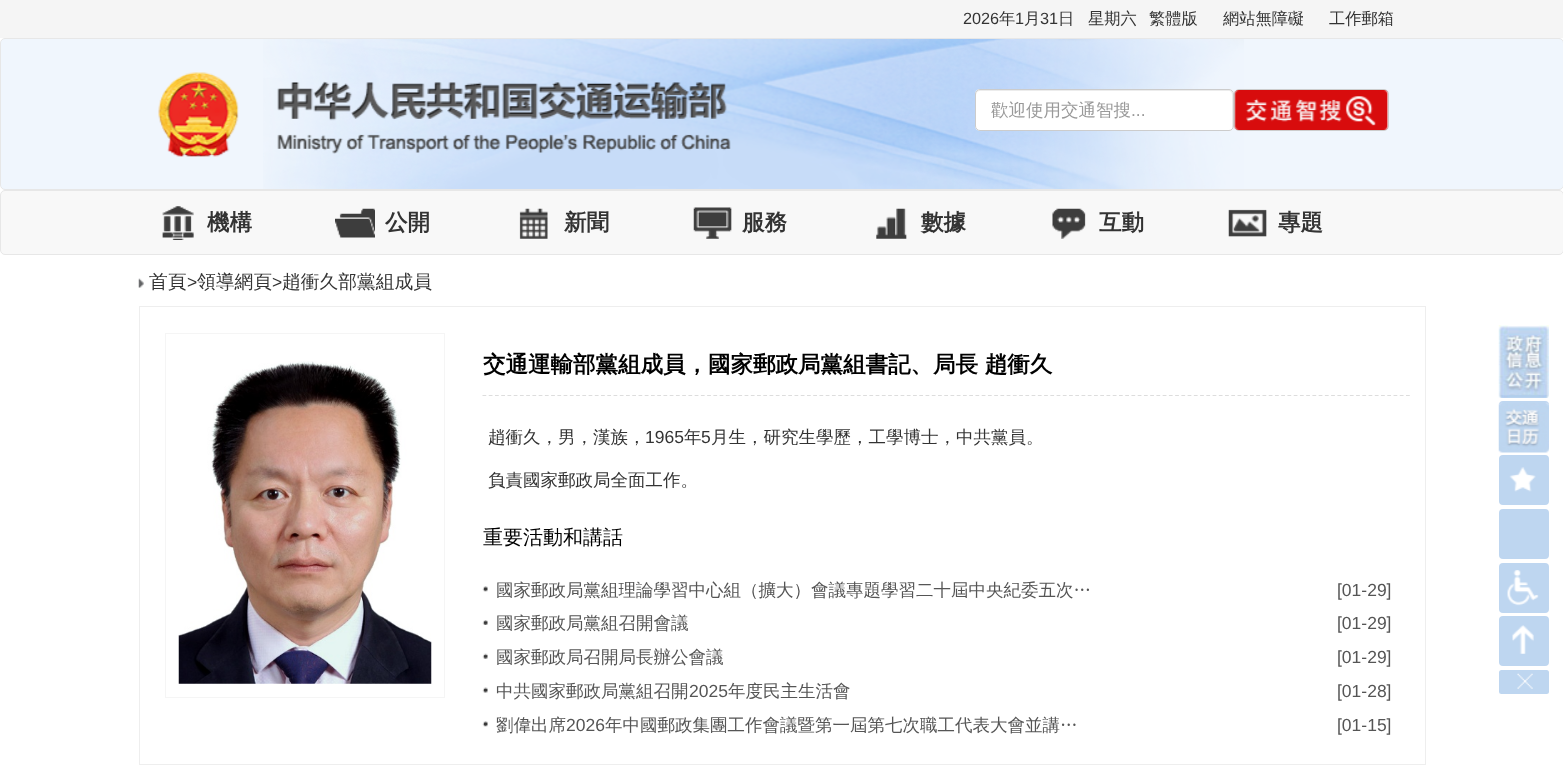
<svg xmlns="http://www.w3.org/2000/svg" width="1563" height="767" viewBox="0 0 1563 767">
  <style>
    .t1 { font: 16.25px Liberation Sans; fill: #333; }
    .t2 { font: 500 16.25px WenQuanYi Zen Hei; fill: #333; }
    .t3 { font: 500 17.5px WenQuanYi Zen Hei; fill: #999; }
    .t4 { font: 17.5px Liberation Sans; fill: #999; }
    .t5 { font: bold 22.5px WenQuanYi Zen Hei; fill: #333; }
    .t6 { font: 500 18.75px WenQuanYi Zen Hei; fill: #333; }
    .t7 { font: 17.5px Liberation Sans; fill: #333; }
    .t8 { font: bold 22.5px WenQuanYi Zen Hei; fill: #000; }
    .t9 { font: 500 17.5px WenQuanYi Zen Hei; fill: #333; }
    .t10 { font: 500 20px WenQuanYi Zen Hei; fill: #000; }
    .t11 { font: 500 17.5px WenQuanYi Zen Hei; fill: #555; }
    .t12 { font: 17.5px Liberation Sans; fill: #555; }
  </style>
  <rect width="100%" height="100%" fill="#fff"/>
  <rect x="0" y="0" width="1563" height="38" fill="#f5f5f5"/>
  <text x="963" y="24" class="t1">2026</text>
  <text x="999" y="24" class="t2">年</text>
  <text x="1015" y="24" class="t1">1</text>
  <text x="1024" y="24" class="t2">月</text>
  <text x="1040" y="24" class="t1">31</text>
  <text x="1058" y="24" class="t2">日</text>
  <text x="1088" y="24" class="t2">星期六</text>
  <text x="1149" y="24" class="t2">繁體版</text>
  <text x="1223" y="24" class="t2">網站無障礙</text>
  <text x="1329" y="24" class="t2">工作郵箱</text>
  <rect x="0.5" y="38.5" width="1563" height="151" rx="4.5" fill="#f0f6fd" stroke="#e7e7e7"/>
  <image x="263" y="39" width="981" height="150" href="images/1.png"/>
  <image x="158" y="72" width="573" height="85" href="images/2.png"/>
  <rect x="975" y="89" width="259" height="42" rx="5" fill="#fff"/>
  <path d="M980 91H1229C1231 91 1232 93 1232 95V129C1233 128 1233 127 1233 126V94C1233 92 1231 90 1229 90H980C978 90 976 92 976 94V95C976 93 978 91 980 91Z" fill="#ececec"/>
  <rect x="975.5" y="89.5" width="258" height="41" rx="4.5" fill="none" stroke="#ccc"/>
  <text x="991" y="116" class="t3">歡迎使用交通智搜</text>
  <text x="1131" y="116" class="t4">...</text>
  <rect x="1234.5" y="89.5" width="154" height="41" rx="4.5" fill="#fff" stroke="#ccc"/>
  <image x="1234" y="90" width="154" height="40" href="images/3.png"/>
  <rect x="0.5" y="190.5" width="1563" height="64" rx="4.5" fill="#f8f8f8" stroke="#e7e7e7"/>
  <image x="162" y="206" width="32" height="34" href="images/4.png"/>
  <text x="207" y="230" class="t5">機構</text>
  <image x="335" y="208" width="40" height="30" href="images/5.png"/>
  <text x="385" y="230" class="t5">公開</text>
  <image x="519" y="208" width="29" height="31" href="images/6.png"/>
  <text x="564" y="230" class="t5">新聞</text>
  <image x="693" y="207" width="39" height="32" href="images/7.png"/>
  <text x="742" y="230" class="t5">服務</text>
  <image x="876" y="208" width="31" height="31" href="images/8.png"/>
  <text x="921" y="230" class="t5">數據</text>
  <image x="1052" y="208" width="34" height="31" href="images/9.png"/>
  <text x="1099" y="230" class="t5">互動</text>
  <image x="1228" y="209" width="39" height="28" href="images/10.png"/>
  <text x="1278" y="230" class="t5">專題</text>
  <image x="138" y="278" width="6" height="10" href="images/11.png"/>
  <text x="149" y="288" class="t6">首頁</text>
  <text x="187" y="288" class="t7">&gt;</text>
  <text x="197" y="288" class="t6">領導網頁</text>
  <text x="272" y="288" class="t7">&gt;</text>
  <text x="282" y="288" class="t6">趙衝久部黨組成員</text>
  <rect x="139.5" y="306.5" width="1286" height="458" fill="none" stroke="#eee"/>
  <rect x="165.5" y="333.5" width="279" height="364" fill="none" stroke="#f5f5f5"/>
  <image x="178" y="361" width="254" height="323" href="images/12.png"/>
  <path d="M482.5 395.5H1410" fill="none" stroke="#ddd" stroke-width="1.2" stroke-dasharray="3.75 2.49"/>
  <text x="483" y="372" class="t8">交通運輸部黨組成員，國家郵政局黨組書記、局長 趙衝久</text>
  <text x="488" y="443" class="t9">趙衝久，男，漢族，</text>
  <text x="645" y="443" class="t7">1965</text>
  <text x="684" y="443" class="t9">年</text>
  <text x="701" y="443" class="t7">5</text>
  <text x="711" y="443" class="t9">月生，研究生學歷，工學博士，中共黨員。</text>
  <text x="488" y="486" class="t9">負責國家郵政局全面工作。</text>
  <text x="483" y="544" class="t10">重要活動和講話</text>
  <image x="482" y="586" width="6" height="6" href="images/13.png"/>
  <text x="496" y="596" class="t11">國家郵政局黨組理論學習中心組（擴大）會議專題學習二十屆中央紀委五次…</text>
  <text x="1337" y="596" class="t12">[01-29]</text>
  <image x="482" y="620" width="6" height="5" href="images/14.png"/>
  <text x="496" y="629" class="t11">國家郵政局黨組召開會議</text>
  <text x="1337" y="629" class="t12">[01-29]</text>
  <image x="482" y="653" width="6" height="6" href="images/15.png"/>
  <text x="496" y="663" class="t11">國家郵政局召開局長辦公會議</text>
  <text x="1337" y="663" class="t12">[01-29]</text>
  <image x="482" y="687" width="6" height="6" href="images/16.png"/>
  <text x="496" y="697" class="t11">中共國家郵政局黨組召開</text>
  <text x="689" y="697" class="t12">2025</text>
  <text x="728" y="697" class="t11">年度民主生活會</text>
  <text x="1337" y="697" class="t12">[01-28]</text>
  <image x="482" y="721" width="6" height="6" href="images/13.png"/>
  <text x="496" y="731" class="t11">劉偉出席</text>
  <text x="566" y="731" class="t12">2026</text>
  <text x="605" y="731" class="t11">年中國郵政集團工作會議暨第一屆第七次職工代表大會並講…</text>
  <text x="1337" y="731" class="t12">[01-15]</text>
  <rect x="1499" y="325" width="50" height="73" rx="4" fill="#bed6f0"/>
  <image x="1498" y="325" width="51" height="73" href="images/17.png"/>
  <rect x="1499" y="401" width="50" height="50" rx="4" fill="#bed6f0"/>
  <image x="1498" y="402" width="51" height="51" href="images/18.png"/>
  <rect x="1499" y="455" width="50" height="50" rx="4" fill="#bed6f0"/>
  <image x="1509" y="467" width="27" height="25" href="images/19.png"/>
  <rect x="1499" y="509" width="50" height="50" rx="4" fill="#bed6f0"/>
  <rect x="1499" y="563" width="50" height="50" rx="4" fill="#bed6f0"/>
  <image x="1507" y="570" width="32" height="36" href="images/20.png"/>
  <rect x="1499" y="616" width="50" height="50" rx="4" fill="#bed6f0"/>
  <image x="1512" y="625" width="22" height="29" href="images/21.png"/>
  <rect x="1499" y="670" width="50" height="24" rx="2.5" fill="#bed6f0"/>
  <image x="1517" y="673" width="16" height="16" href="images/22.png"/>
</svg>
